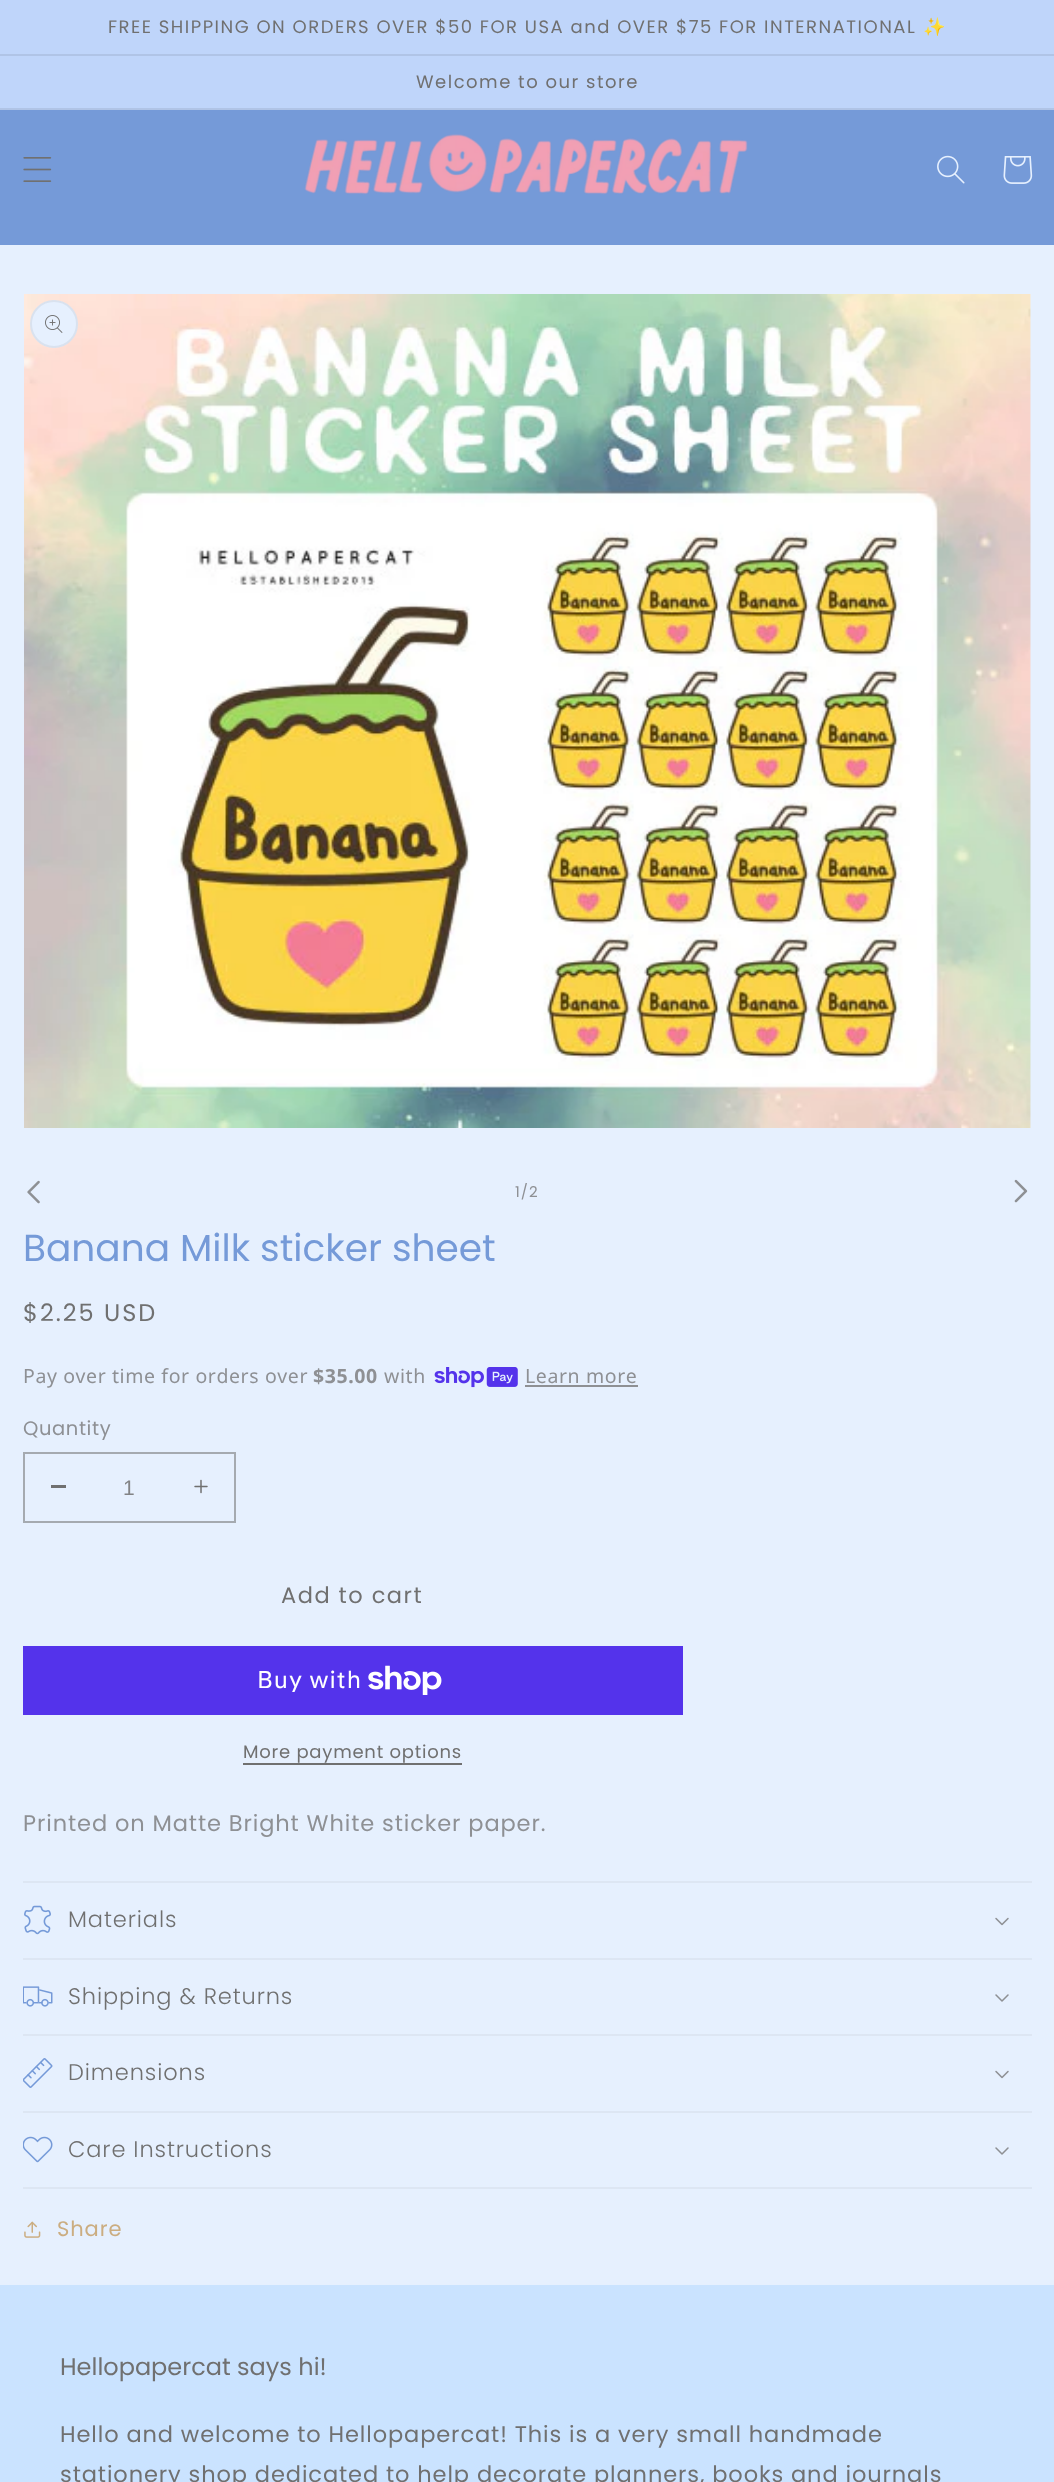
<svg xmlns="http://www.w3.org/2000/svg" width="1054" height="2482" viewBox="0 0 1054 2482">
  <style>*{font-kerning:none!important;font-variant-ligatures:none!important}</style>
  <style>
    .t1 { font: 18px Poppins; letter-spacing: 1.5px; fill: #707070; }
    .t2 { font: 18px Noto Color Emoji; letter-spacing: 1.5px; fill: #707070; }
    .t3 { font: 15px Poppins; letter-spacing: 1px; fill: #8e9094; }
    .t4 { font: 37.5px Poppins; fill: #759ad8; }
    .t5 { font: 24px Poppins; letter-spacing: 2px; fill: #707070; }
    .t6 { font: 19.5px Noto Sans; letter-spacing: 0.6px; fill: #8e9094; }
    .t7 { font: bold 19.5px Noto Sans; letter-spacing: 0.6px; fill: #8e9094; }
    .t8 { font: 19.5px Poppins; letter-spacing: 0.6px; fill: #8e9094; }
    .t9 { font: 21px Liberation Sans; fill: #828385; }
    .t10 { font: 22.5px Poppins; letter-spacing: 1.5px; fill: #707070; }
    .t11 { font: 24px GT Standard; letter-spacing: 0.9px; fill: #fff; }
    .t12 { font: 18px Poppins; letter-spacing: 0.75px; fill: #707070; }
    .t13 { font: 22.5px Poppins; letter-spacing: 0.9px; fill: #8e9094; }
    .t14 { font: 300 22.5px Poppins; letter-spacing: 0.9px; fill: #707070; }
    .t15 { font: 21px Poppins; letter-spacing: 0.9px; fill: #cbad81; }
    .t16 { font: 24px Poppins; fill: #707070; }
    .t17 { font: 22.5px Poppins; letter-spacing: 0.9px; fill: #707070; }
  </style>
  <rect width="100%" height="100%" fill="#e6f0fe"/>
  <rect x="0" y="0" width="1054" height="54" fill="#bfd5fa"/>
  <rect x="0" y="54" width="1054" height="2" fill="#b0c4e6"/>
  <text x="108" y="33" class="t1">FREE SHIPPING ON ORDERS OVER $50 FOR USA and OVER $75 FOR INTERNATIONAL</text>
  <text x="923" y="33" class="t2">✨</text>
  <rect x="0" y="56" width="1054" height="52" fill="#bfd5fa"/>
  <rect x="0" y="108" width="1054" height="2" fill="#b0c4e6"/>
  <text x="416" y="88" class="t1">Welcome to our store</text>
  <rect x="0" y="110" width="1054" height="135" fill="#759ad8"/>
  <image x="23" y="157" width="29" height="25" href="images/1.png"/>
  <image x="304" y="134" width="444" height="61" href="images/2.png"/>
  <image x="937" y="155" width="28" height="29" href="images/3.png"/>
  <image x="1003" y="156" width="30" height="28" href="images/4.png"/>
  <image x="24" y="294" width="1007" height="834" href="images/5.png"/>
  <circle cx="54" cy="324" r="24" fill="#e6f0fe"/>
  <circle cx="54" cy="324" r="23" fill="none" stroke="#7070701a" stroke-width="2"/>
  <image x="45" y="315" width="18" height="18" href="images/6.png"/>
  <image x="27" y="1180" width="13" height="24" href="images/7.png"/>
  <text x="515" y="1197" class="t3">1/2</text>
  <image x="1014" y="1179" width="14" height="24" href="images/8.png"/>
  <text x="23" y="1261" class="t4">Banana Milk sticker sheet</text>
  <text x="23" y="1321" class="t5">$2.25 USD</text>
  <text x="23" y="1383" class="t6">Pay over time for orders over</text>
  <text x="313" y="1383" class="t7">$35.00</text>
  <text x="384" y="1383" class="t6">with</text>
  <image x="434" y="1367" width="84" height="21" href="images/9.png"/>
  <text x="525" y="1383" class="t6">Learn more</text>
  <rect x="525" y="1385" width="113" height="2" fill="#8e9094"/>
  <text x="23" y="1435" class="t8">Quantity</text>
  <rect x="51" y="1485" width="15" height="3" fill="#707070"/>
  <image x="194" y="1479" width="14" height="15" href="images/10.png"/>
  <rect x="24" y="1453" width="211" height="69" fill="none" stroke="#a5aab0" stroke-width="2"/>
  <text x="123" y="1495" class="t9">1</text>
  <text x="281" y="1603" class="t10">Add to cart</text>
  <rect x="23" y="1646" width="660" height="69" fill="#5433eb"/>
  <text x="257" y="1688" class="t11">Buy with</text>
  <image x="368" y="1665" width="74" height="30" href="images/11.png"/>
  <text x="243" y="1758" class="t12">More payment options</text>
  <rect x="243" y="1763" width="219" height="2" fill="#707070"/>
  <text x="23" y="1831" class="t13">Printed on Matte Bright White sticker paper.</text>
  <rect x="23" y="1881" width="1009" height="2" fill="#dde6f3"/>
  <rect x="23" y="1958" width="1009" height="2" fill="#dde6f3"/>
  <image x="24" y="1905" width="27" height="30" href="images/12.png"/>
  <text x="68" y="1927" class="t14">Materials</text>
  <image x="995" y="1917" width="14" height="9" href="images/13.png"/>
  <rect x="23" y="2034" width="1009" height="2" fill="#dde6f3"/>
  <image x="23" y="1986" width="30" height="21" href="images/14.png"/>
  <text x="68" y="2004" class="t14">Shipping &amp; Returns</text>
  <image x="995" y="1994" width="14" height="8" href="images/15.png"/>
  <rect x="23" y="2111" width="1009" height="2" fill="#dde6f3"/>
  <image x="23" y="2058" width="30" height="30" href="images/16.png"/>
  <text x="68" y="2080" class="t14">Dimensions</text>
  <image x="995" y="2070" width="14" height="9" href="images/13.png"/>
  <rect x="23" y="2187" width="1009" height="2" fill="#dde6f3"/>
  <image x="23" y="2136" width="30" height="27" href="images/17.png"/>
  <text x="68" y="2157" class="t14">Care Instructions</text>
  <image x="995" y="2147" width="14" height="8" href="images/15.png"/>
  <image x="24" y="2221" width="17" height="17" href="images/18.png"/>
  <text x="57" y="2236" class="t15">Share</text>
  <rect x="0" y="2285" width="1054" height="197" fill="#cae3ff"/>
  <text x="60" y="2375" class="t16">Hellopapercat says hi!</text>
  <text x="60" y="2442" class="t17">Hello and welcome to Hellopapercat! This is a very small handmade</text>
  <text x="60" y="2482" class="t17">stationery shop dedicated to help decorate planners, books and journals</text>
</svg>
